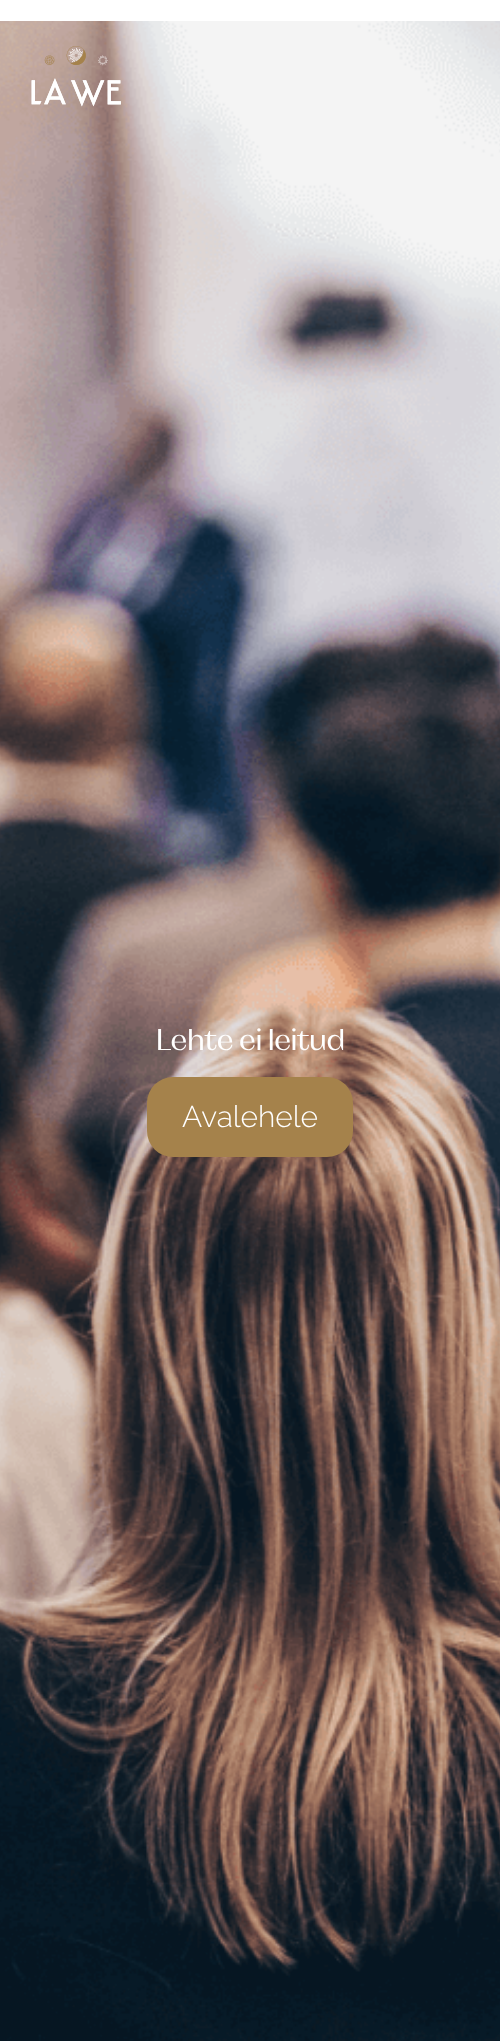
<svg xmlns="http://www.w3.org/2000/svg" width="500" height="2041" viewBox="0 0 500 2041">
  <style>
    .t1 { font: 30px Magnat; fill: #fff; }
    .t2 { font: 300 30px Raleway; fill: #fff; }
  </style>
  <rect width="100%" height="100%" fill="#fff"/>
  <image x="0" y="21" width="500" height="2020" href="images/2.png"/>
  <image x="31" y="46" width="90" height="61" href="images/1.png"/>
  <text x="156" y="1050" class="t1">Lehte ei leitud</text>
  <rect x="147" y="1077" width="206" height="80" rx="26" fill="#a5824b"/>
  <text x="182" y="1127" class="t2">Avalehele</text>
</svg>
